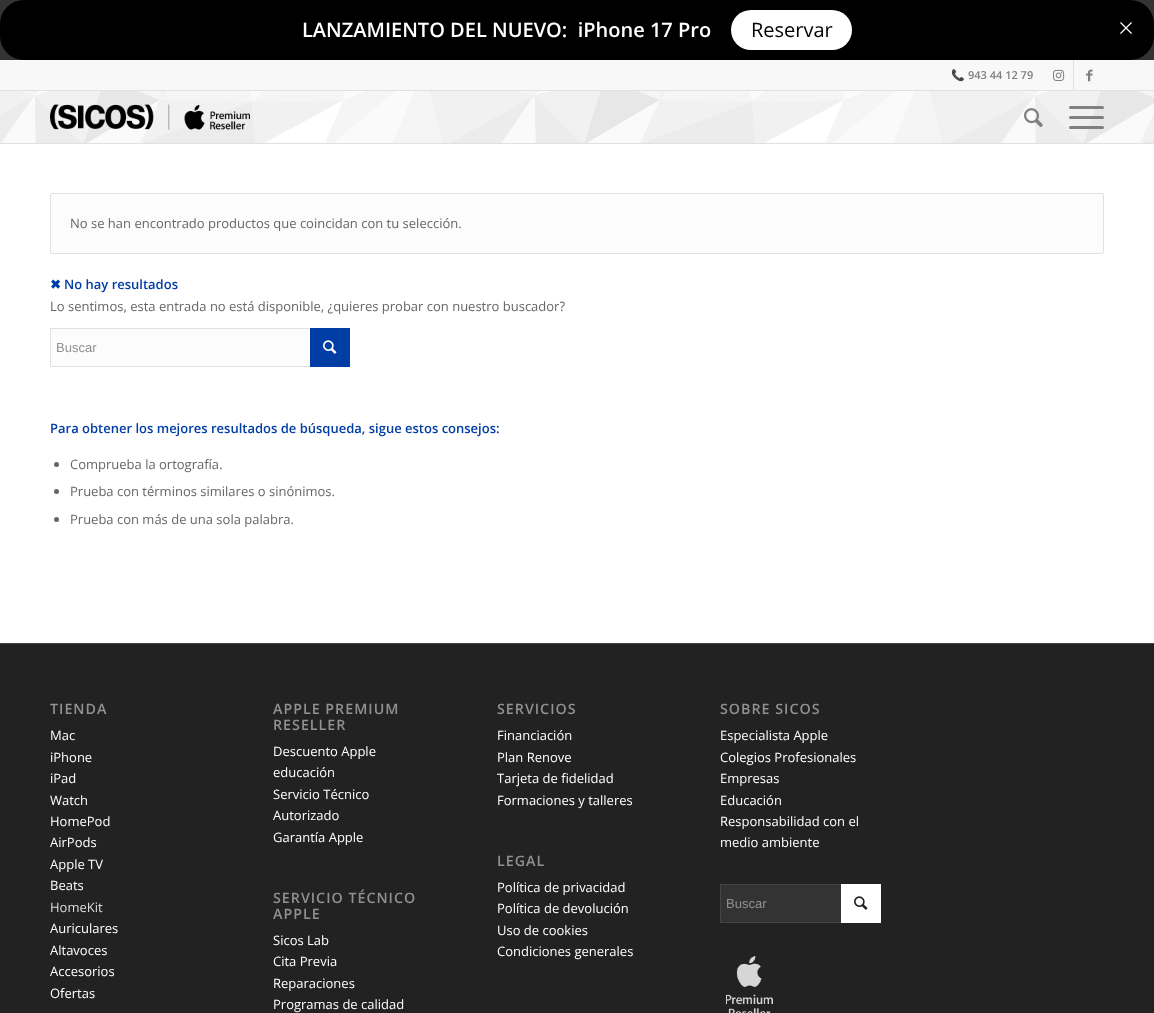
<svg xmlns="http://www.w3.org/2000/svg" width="1154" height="1013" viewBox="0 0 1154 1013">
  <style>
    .t1 { font: 600 20px Open Sans; fill: #fff; }
    .t2 { font: 20px Open Sans; fill: #000; }
    .t3 { font: bold 11px Noto Color Emoji; fill: #808080; }
    .t4 { font: 600 11px Open Sans; fill: #808080; }
    .t5 { font: 13px Open Sans; fill: #666; }
    .t6 { font: bold 13px DejaVu Sans; fill: #003da5; }
    .t7 { font: 600 13px Open Sans; fill: #003da5; }
    .t8 { font: 13px Liberation Sans; fill: #919191; }
    .t9 { font: 600 14.25px Open Sans; letter-spacing: 1px; fill: #919191; }
    .t10 { font: 13px Open Sans; fill: #fff; }
    .t11 { font: 13px Open Sans; fill: #ddd; }
  </style>
  <rect width="100%" height="100%" fill="#333"/>
  <rect x="0" y="0" width="1154" height="60" rx="24" fill="#000"/>
  <text x="302" y="37" class="t1" xml:space="preserve">LANZAMIENTO DEL NUEVO:  iPhone 17 Pro</text>
  <rect x="731" y="10" width="121" height="40" rx="20" fill="#fff"/>
  <text x="751" y="37" class="t2">Reservar</text>
  <image x="1120" y="22" width="12" height="12" href="images/1.png"/>
  <rect x="0" y="144" width="1154" height="499" fill="#fff"/>
  <rect x="0" y="91" width="1154" height="51" fill="#fff"/>
  <rect x="0" y="60" width="1154" height="30" fill="#f8f8f8"/>
  <rect x="0" y="90" width="1154" height="1" fill="#e1e1e1"/>
  <text x="951" y="79" class="t3">📞</text>
  <text x="968" y="79" class="t4">943 44 12 79</text>
  <rect x="1073" y="60" width="1" height="30" fill="#e1e1e1"/>
  <image x="1053" y="69" width="12" height="12" href="images/2.png"/>
  <image x="1086" y="69" width="7" height="13" href="images/3.png"/>
  <rect x="0" y="142" width="1154" height="1" fill="#fefefe"/>
  <image x="0" y="91" width="1154" height="52" href="images/4.png"/>
  <rect x="0" y="143" width="1154" height="1" fill="#e1e1e1"/>
  <image x="50" y="104" width="200" height="26" href="images/5.png"/>
  <image x="1024" y="108" width="19" height="20" href="images/6.png"/>
  <rect x="1069" y="116" width="35" height="3" rx="1.5" fill="#808080"/>
  <rect x="1069" y="106" width="35" height="3" rx="1.5" fill="#808080"/>
  <rect x="1069" y="126" width="35" height="3" rx="1.5" fill="#808080"/>
  <rect x="50.5" y="193.5" width="1053" height="60" rx="1.5" fill="#fcfcfc" stroke="#e1e1e1"/>
  <text x="70" y="228" class="t5">No se han encontrado productos que coincidan con tu selección.</text>
  <text x="50" y="289" class="t6">✖</text>
  <text x="64" y="289" class="t7">No hay resultados</text>
  <text x="50" y="311" class="t5">Lo sentimos, esta entrada no está disponible, ¿quieres probar con nuestro buscador?</text>
  <rect x="51" y="329" width="259" height="37" fill="#fcfcfc"/>
  <rect x="50.5" y="328.5" width="299" height="38" fill="none" stroke="#e1e1e1"/>
  <text x="56" y="352" class="t8">Buscar</text>
  <rect x="310" y="328" width="40" height="39" fill="#003da5"/>
  <image x="323" y="340" width="14" height="14" href="images/7.png"/>
  <text x="50" y="433" class="t7">Para obtener los mejores resultados de búsqueda, sigue estos consejos:</text>
  <circle cx="56.5" cy="464.5" r="2.5" fill="#666"/>
  <text x="70" y="469" class="t5">Comprueba la ortografía.</text>
  <circle cx="56.5" cy="491.5" r="2.5" fill="#666"/>
  <text x="70" y="496" class="t5">Prueba con términos similares o sinónimos.</text>
  <circle cx="56.5" cy="519.5" r="2.5" fill="#666"/>
  <text x="70" y="524" class="t5">Prueba con más de una sola palabra.</text>
  <rect x="0" y="644" width="1154" height="369" fill="#222"/>
  <rect x="0" y="643" width="1154" height="1" fill="#444"/>
  <text x="50" y="714" class="t9">TIENDA</text>
  <text x="50" y="740" class="t10">Mac</text>
  <text x="50" y="762" class="t10">iPhone</text>
  <text x="50" y="783" class="t10">iPad</text>
  <text x="50" y="805" class="t10">Watch</text>
  <text x="50" y="826" class="t10">HomePod</text>
  <text x="50" y="847" class="t10">AirPods</text>
  <text x="50" y="869" class="t10">Apple TV</text>
  <text x="50" y="890" class="t10">Beats</text>
  <text x="50" y="912" class="t11">HomeKit</text>
  <text x="50" y="933" class="t10">Auriculares</text>
  <text x="50" y="955" class="t10">Altavoces</text>
  <text x="50" y="976" class="t10">Accesorios</text>
  <text x="50" y="998" class="t10">Ofertas</text>
  <text x="273" y="714" class="t9">APPLE PREMIUM</text>
  <text x="273" y="730" class="t9">RESELLER</text>
  <text x="273" y="756" class="t10">Descuento Apple</text>
  <text x="273" y="777" class="t10">educación</text>
  <text x="273" y="799" class="t10">Servicio Técnico</text>
  <text x="273" y="820" class="t10">Autorizado</text>
  <text x="273" y="842" class="t10">Garantía Apple</text>
  <text x="273" y="903" class="t9">SERVICIO TÉCNICO</text>
  <text x="273" y="919" class="t9">APPLE</text>
  <text x="273" y="945" class="t10">Sicos Lab</text>
  <text x="273" y="966" class="t10">Cita Previa</text>
  <text x="273" y="988" class="t10">Reparaciones</text>
  <text x="273" y="1009" class="t10">Programas de calidad</text>
  <text x="497" y="714" class="t9">SERVICIOS</text>
  <text x="497" y="740" class="t10">Financiación</text>
  <text x="497" y="762" class="t10">Plan Renove</text>
  <text x="497" y="783" class="t10">Tarjeta de fidelidad</text>
  <text x="497" y="805" class="t10">Formaciones y talleres</text>
  <text x="497" y="866" class="t9">LEGAL</text>
  <text x="497" y="892" class="t10">Política de privacidad</text>
  <text x="497" y="913" class="t10">Política de devolución</text>
  <text x="497" y="935" class="t10">Uso de cookies</text>
  <text x="497" y="956" class="t10">Condiciones generales</text>
  <text x="720" y="714" class="t9">SOBRE SICOS</text>
  <text x="720" y="740" class="t10">Especialista Apple</text>
  <text x="720" y="762" class="t10">Colegios Profesionales</text>
  <text x="720" y="783" class="t10">Empresas</text>
  <text x="720" y="805" class="t10">Educación</text>
  <text x="720" y="826" class="t10">Responsabilidad con el</text>
  <text x="720" y="847" class="t10">medio ambiente</text>
  <rect x="721" y="885" width="120" height="37" fill="#333"/>
  <rect x="720.5" y="884.5" width="160" height="38" fill="none" stroke="#444"/>
  <text x="726" y="908" class="t8">Buscar</text>
  <rect x="841" y="884" width="40" height="39" fill="#fff"/>
  <image x="854" y="896" width="14" height="14" href="images/8.png"/>
  <image x="726" y="956" width="47" height="57" href="images/9.png"/>
</svg>
